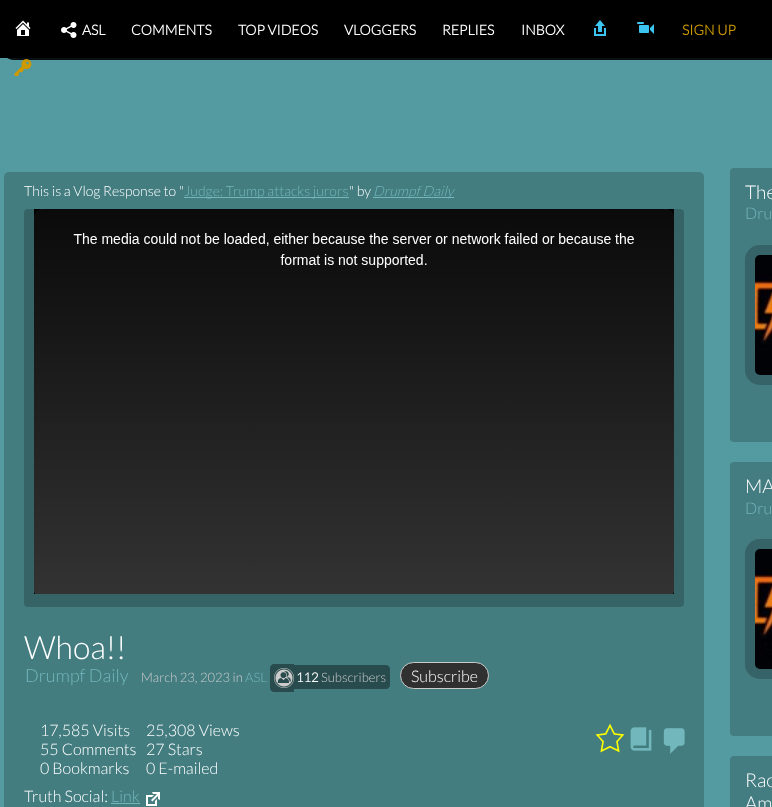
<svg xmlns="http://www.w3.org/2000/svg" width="772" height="807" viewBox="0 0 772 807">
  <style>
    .t1 { font: bold 14px Lato; fill: #fff; }
    .t2 { font: bold 14px Lato; fill: #c90; }
    .t3 { font: 300 14px Lato; fill: #fff; }
    .t4 { font: 300 14px Lato; fill: #72b7bc; }
    .t5 { font: italic 300 14px Lato; fill: #72b7bc; }
    .t6 { font: 300 32px Lato; fill: #fff; }
    .t7 { font: 300 18px Lato; fill: #72b7bc; }
    .t8 { font: 300 13px Lato; fill: #ccc; }
    .t9 { font: 300 13px Lato; fill: #72b7bc; }
    .t10 { font: bold 13px Lato; fill: #fff; }
    .t11 { font: 300 16px Lato; fill: #fff; }
    .t12 { font: 300 16px Lato; fill: #72b7bc; }
    .t13 { font: 300 19px Lato; fill: #fff; }
  </style>
  <rect width="100%" height="100%" fill="#549ba1"/>
  <rect x="0" y="0" width="772" height="58" fill="#000"/>
  <path d="M0 0H772V60H14C6.5 60 0 53.5 0 46Z" fill="#000000e6"/>
  <image x="15" y="20" width="16" height="16" href="images/1.png"/>
  <image x="61" y="22" width="16" height="16" href="images/2.png"/>
  <text x="82" y="35" class="t1">ASL</text>
  <text x="131" y="35" class="t1">COMMENTS</text>
  <text x="238" y="35" class="t1">TOP VIDEOS</text>
  <text x="344" y="35" class="t1">VLOGGERS</text>
  <text x="442" y="35" class="t1">REPLIES</text>
  <text x="521" y="35" class="t1">INBOX</text>
  <image x="594" y="20" width="12" height="16" href="images/3.png"/>
  <image x="637" y="22" width="17" height="12" href="images/4.png"/>
  <text x="682" y="35" class="t2">SIGN UP</text>
  <image x="14" y="59" width="18" height="17" href="images/5.png"/>
  <rect x="4" y="172" width="700" height="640" rx="5" fill="#437d80"/>
  <text x="24" y="196" class="t3">This is a Vlog Response to "</text>
  <rect x="184" y="197" width="165" height="1" fill="#72b7bc"/>
  <text x="184" y="196" class="t4">Judge: Trump attacks jurors</text>
  <text x="349" y="196" class="t3">" by</text>
  <rect x="373" y="197" width="81" height="1" fill="#72b7bc"/>
  <text x="373" y="196" class="t5">Drumpf Daily</text>
  <rect x="24" y="209" width="660" height="398" rx="4" fill="#366466"/>
  <image x="34" y="209" width="640" height="385" href="images/6.png"/>
  <text x="24" y="659" class="t6">Whoa!!</text>
  <text x="25" y="682" class="t7">Drumpf Daily</text>
  <text x="141" y="682" class="t8">March 23, 2023 in</text>
  <text x="245" y="682" class="t9">ASL</text>
  <path d="M274 664H294V692H274C272 692 270 690 270 688V668C270 666 272 664 274 664Z" fill="#284b4d"/>
  <rect x="294" y="665" width="25" height="24" fill="#284b4d"/>
  <path d="M319 665H386C388 665 390 667 390 669V685C390 687 388 689 386 689H319Z" fill="#284b4d"/>
  <image x="274" y="668" width="20" height="20" href="images/7.png"/>
  <text x="296" y="682" class="t10">112</text>
  <text x="321" y="682" class="t8">Subscribers</text>
  <rect x="400.5" y="662.5" width="88" height="26" rx="13" fill="#303030" stroke="#ccc"/>
  <text x="411" y="682" class="t11">Subscribe</text>
  <text x="40" y="736" class="t11">17,585 Visits</text>
  <text x="146" y="736" class="t11">25,308 Views</text>
  <text x="146" y="755" class="t11">27 Stars</text>
  <text x="146" y="774" class="t11">0 E-mailed</text>
  <text x="40" y="755" class="t11">55 Comments</text>
  <text x="40" y="774" class="t11">0 Bookmarks</text>
  <image x="595" y="723" width="30" height="30" href="images/8.png"/>
  <image x="630" y="727" width="22" height="24" href="images/9.png"/>
  <image x="663" y="728" width="22" height="26" href="images/10.png"/>
  <text x="24" y="802" class="t11">Truth Social:</text>
  <text x="111" y="802" class="t12">Link</text>
  <rect x="111" y="803" width="29" height="1" fill="#72b7bc"/>
  <image x="146" y="792" width="14" height="14" href="images/11.png"/>
  <rect x="730" y="168" width="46" height="274" rx="4" fill="#437c81"/>
  <text x="745" y="199" class="t13">The</text>
  <text x="745" y="219" class="t12">Dru</text>
  <rect x="745" y="245" width="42" height="140" rx="15" fill="#366367"/>
  <image x="755" y="255" width="17" height="120" href="images/12.png"/>
  <rect x="730" y="462" width="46" height="274" rx="4" fill="#437c81"/>
  <text x="745" y="493" class="t13">MA</text>
  <text x="745" y="514" class="t12">Dru</text>
  <rect x="745" y="539" width="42" height="140" rx="15" fill="#366367"/>
  <image x="755" y="549" width="17" height="120" href="images/13.png"/>
  <rect x="730" y="756" width="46" height="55" rx="4" fill="#437c81"/>
  <text x="745" y="787" class="t13">Rac</text>
  <text x="745" y="810" class="t13">Am</text>
</svg>
